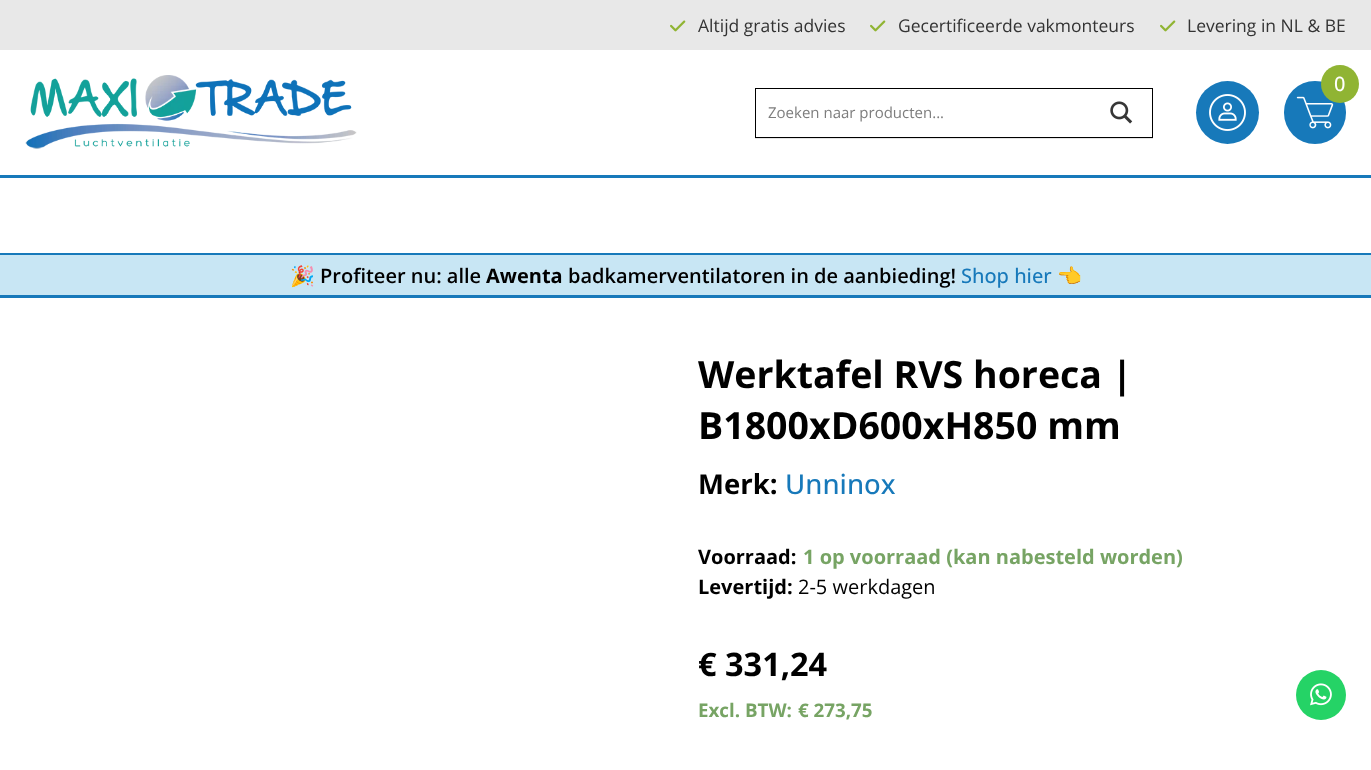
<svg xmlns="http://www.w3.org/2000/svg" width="1371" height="770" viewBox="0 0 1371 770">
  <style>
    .t1 { font: 17.5px Open Sans; fill: #333; }
    .t2 { font: 500 20px Open Sans; fill: #fff; }
    .t3 { font: 15px Open Sans; fill: #7d7d7d; }
    .t4 { font: bold 20px Noto Color Emoji; fill: #000; }
    .t5 { font: 600 20px Open Sans; fill: #000; }
    .t6 { font: bold 20px Open Sans; fill: #000; }
    .t7 { font: 500 20px Open Sans; fill: #1779ba; }
    .t8 { font: bold 37.5px Open Sans; fill: #000; }
    .t9 { font: bold 27.5px Open Sans; fill: #000; }
    .t10 { font: 500 27.5px Open Sans; fill: #1779ba; }
    .t11 { font: bold 20px Open Sans; fill: #77a464; }
    .t12 { font: 20px Open Sans; fill: #000; }
    .t13 { font: bold 32.5px Open Sans; fill: #000; }
    .t14 { font: bold 18.75px Open Sans; fill: #77a464; }
  </style>
  <rect width="100%" height="100%" fill="#fff"/>
  <rect x="0" y="0" width="1371" height="50" fill="#e8e8e8"/>
  <image x="670" y="20" width="16" height="12" href="images/1.png"/>
  <text x="698" y="32" class="t1">Altijd gratis advies</text>
  <image x="870" y="20" width="16" height="12" href="images/1.png"/>
  <text x="898" y="32" class="t1">Gecertificeerde vakmonteurs</text>
  <image x="1160" y="20" width="16" height="12" href="images/1.png"/>
  <text x="1187" y="32" class="t1">Levering in NL &amp; BE</text>
  <image x="25" y="75" width="332" height="74" href="images/2.png"/>
  <circle cx="1227.5" cy="112.5" r="31.5" fill="#1779ba"/>
  <image x="1209" y="94" width="37" height="37" href="images/3.png"/>
  <rect x="1284" y="81" width="62" height="63" rx="31" fill="#1779ba"/>
  <image x="1296" y="96" width="38" height="33" href="images/4.png"/>
  <circle cx="1340" cy="84" r="19" fill="#90b433"/>
  <text x="1334" y="91" class="t2">0</text>
  <path d="M755 138V139H1153V89H1152V138Z" fill="#e4e4e4"/>
  <rect x="755.5" y="88.5" width="397" height="49" fill="none" stroke="#000"/>
  <text x="768" y="118" class="t3">Zoeken naar producten...</text>
  <image x="1110" y="101" width="23" height="23" href="images/5.png"/>
  <rect x="0" y="175" width="1371" height="3" fill="#1779ba"/>
  <rect x="0" y="253" width="1371" height="2" fill="#1779ba"/>
  <rect x="0" y="255" width="1371" height="40" fill="#c8e6f4"/>
  <rect x="0" y="295" width="1371" height="3" fill="#1779ba"/>
  <text x="290" y="283" class="t4">🎉</text>
  <text x="320" y="283" class="t5">Profiteer nu: alle</text>
  <text x="486" y="283" class="t6">Awenta</text>
  <text x="568" y="283" class="t5">badkamerventilatoren in de aanbieding!</text>
  <text x="961" y="283" class="t7">Shop hier</text>
  <text x="1057" y="283" class="t4">👈</text>
  <text x="698" y="388" class="t8">Werktafel RVS horeca |</text>
  <text x="698" y="439" class="t8">B1800xD600xH850 mm</text>
  <text x="698" y="494" class="t9">Merk:</text>
  <text x="785" y="494" class="t10">Unninox</text>
  <text x="698" y="564" class="t6">Voorraad:</text>
  <text x="803" y="564" class="t11">1 op voorraad (kan nabesteld worden)</text>
  <text x="698" y="594" class="t6">Levertijd:</text>
  <text x="798" y="594" class="t12">2-5 werkdagen</text>
  <text x="698" y="676" class="t13">€ 331,24</text>
  <text x="698" y="717" class="t14">Excl. BTW:</text>
  <text x="798" y="717" class="t14">€ 273,75</text>
  <circle cx="1321" cy="695" r="25" fill="#25d366"/>
  <image x="1310" y="683" width="22" height="23" href="images/6.png"/>
</svg>
